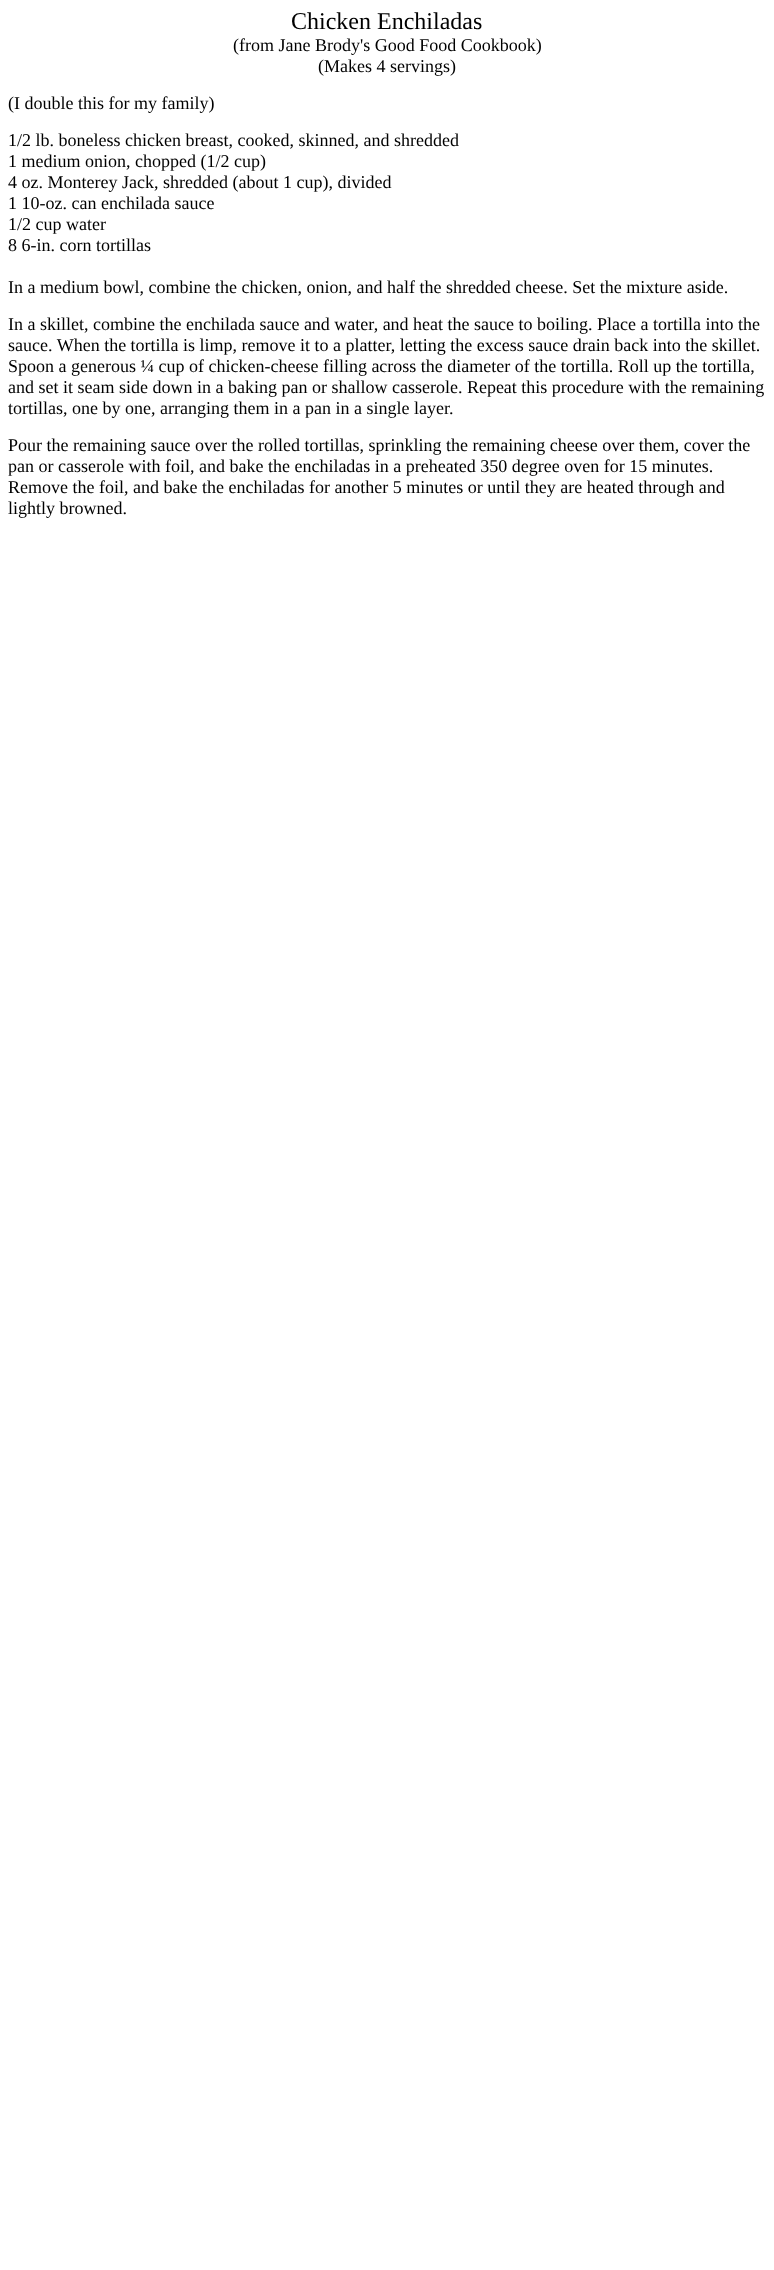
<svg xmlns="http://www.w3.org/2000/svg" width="774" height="2270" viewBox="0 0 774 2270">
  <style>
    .t1 { font: 24px Liberation Serif; fill: #000; }
    .t2 { font: 18px Liberation Serif; fill: #000; }
  </style>
  <rect width="100%" height="100%" fill="#fff"/>
  <text x="291" y="29" class="t1">Chicken Enchiladas</text>
  <text x="233" y="51" class="t2">(from Jane Brody's Good Food Cookbook)</text>
  <text x="318" y="72" class="t2">(Makes 4 servings)</text>
  <text x="8" y="109" class="t2">(I double this for my family)</text>
  <text x="8" y="146" class="t2">1/2 lb. boneless chicken breast, cooked, skinned, and shredded</text>
  <text x="8" y="167" class="t2">1 medium onion, chopped (1/2 cup)</text>
  <text x="8" y="188" class="t2">4 oz. Monterey Jack, shredded (about 1 cup), divided</text>
  <text x="8" y="209" class="t2">1 10-oz. can enchilada sauce</text>
  <text x="8" y="230" class="t2">1/2 cup water</text>
  <text x="8" y="251" class="t2">8 6-in. corn tortillas</text>
  <text x="8" y="293" class="t2">In a medium bowl, combine the chicken, onion, and half the shredded cheese. Set the mixture aside.</text>
  <text x="8" y="330" class="t2">In a skillet, combine the enchilada sauce and water, and heat the sauce to boiling. Place a tortilla into the</text>
  <text x="8" y="351" class="t2">sauce. When the tortilla is limp, remove it to a platter, letting the excess sauce drain back into the skillet.</text>
  <text x="8" y="372" class="t2">Spoon a generous ¼ cup of chicken-cheese filling across the diameter of the tortilla. Roll up the tortilla,</text>
  <text x="8" y="393" class="t2">and set it seam side down in a baking pan or shallow casserole. Repeat this procedure with the remaining</text>
  <text x="8" y="414" class="t2">tortillas, one by one, arranging them in a pan in a single layer.</text>
  <text x="8" y="451" class="t2">Pour the remaining sauce over the rolled tortillas, sprinkling the remaining cheese over them, cover the</text>
  <text x="8" y="472" class="t2">pan or casserole with foil, and bake the enchiladas in a preheated 350 degree oven for 15 minutes.</text>
  <text x="8" y="493" class="t2">Remove the foil, and bake the enchiladas for another 5 minutes or until they are heated through and</text>
  <text x="8" y="514" class="t2">lightly browned.</text>
</svg>
